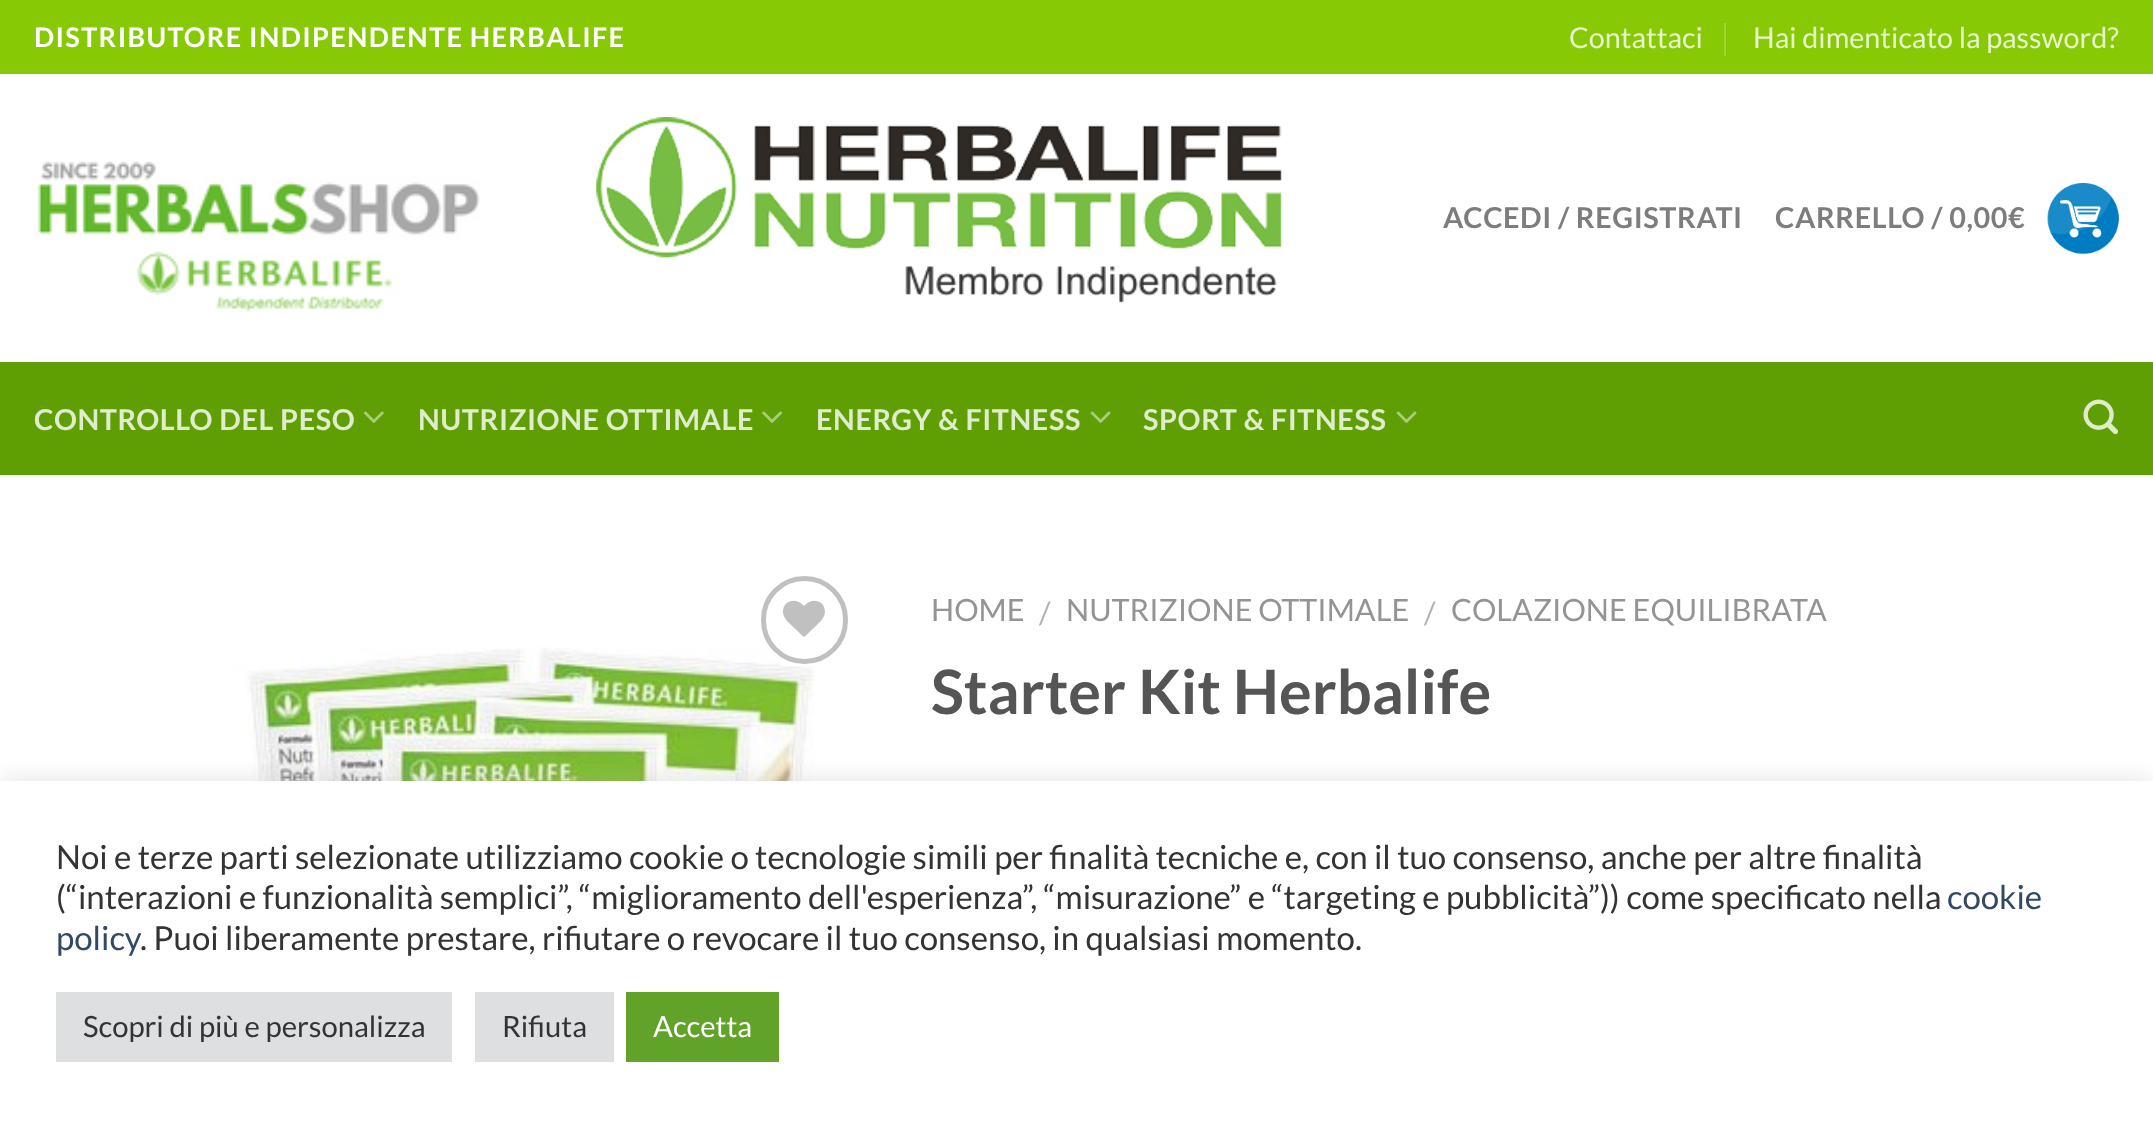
<svg xmlns="http://www.w3.org/2000/svg" width="2153" height="1128" viewBox="0 0 2153 1128">
  <style>
    .t1 { font: bold 27px Lato; letter-spacing: 1.35px; fill: #fff; }
    .t2 { font: 28.75px Lato; fill: #e7f4cd; }
    .t3 { font: bold 28.75px Lato; letter-spacing: 0.6px; fill: #7d7d7d; }
    .t4 { font: bold 28.75px Lato; letter-spacing: 0.6px; fill: #dfeccd; }
    .t5 { font: 30.6px Lato; fill: #949494; }
    .t6 { font: 30.6px Lato; fill: #b2b2b2; }
    .t7 { font: bold 61.25px Lato; fill: #555; }
    .t8 { font: 33px Lato; fill: #333; }
    .t9 { font: 33px Lato; fill: #334862; }
    .t10 { font: 29.25px Lato; fill: #333; }
    .t11 { font: 29.25px Lato; fill: #fff; }
  </style>
  <rect width="100%" height="100%" fill="#fff"/>
  <rect x="0" y="0" width="2153" height="74" fill="#88c905"/>
  <text x="34" y="47" class="t1">DISTRIBUTORE INDIPENDENTE HERBALIFE</text>
  <text x="1569" y="48" class="t2">Contattaci</text>
  <rect x="1724" y="23" width="2" height="33" fill="#a0d437"/>
  <text x="1753" y="48" class="t2">Hai dimenticato la password?</text>
  <image x="37" y="161" width="443" height="151" href="images/1.png"/>
  <image x="596" y="117" width="686" height="186" href="images/2.png"/>
  <text x="1443" y="228" class="t3">ACCEDI / REGISTRATI</text>
  <text x="1775" y="228" class="t3">CARRELLO / 0,00€</text>
  <image x="2047" y="183" width="72" height="72" href="images/3.png"/>
  <rect x="0" y="362" width="2153" height="113" fill="#5f9f03"/>
  <rect x="34" y="362" width="2086" height="2" fill="#619b0f"/>
  <text x="34" y="430" class="t4">CONTROLLO DEL PESO</text>
  <image x="363" y="411" width="21" height="12" href="images/4.png"/>
  <text x="418" y="430" class="t4">NUTRIZIONE OTTIMALE</text>
  <image x="762" y="411" width="20" height="12" href="images/5.png"/>
  <text x="816" y="430" class="t4">ENERGY &amp; FITNESS</text>
  <image x="1090" y="411" width="21" height="12" href="images/6.png"/>
  <text x="1143" y="430" class="t4">SPORT &amp; FITNESS</text>
  <image x="1396" y="411" width="21" height="12" href="images/6.png"/>
  <image x="2083" y="399" width="35" height="36" href="images/7.png"/>
  <image x="84" y="647" width="731" height="134" href="images/9.png"/>
  <rect x="763.5" y="578.5" width="82" height="83" rx="41" fill="none" stroke="#c0c0c0" stroke-width="5"/>
  <image x="783" y="600" width="42" height="37" href="images/8.png"/>
  <text x="931" y="621" class="t5">HOME</text>
  <text x="1039" y="624" class="t6">/</text>
  <text x="1066" y="621" class="t5">NUTRIZIONE OTTIMALE</text>
  <text x="1424" y="624" class="t6">/</text>
  <text x="1451" y="621" class="t5">COLAZIONE EQUILIBRATA</text>
  <text x="931" y="714" class="t7">Starter Kit Herbalife</text>
  <rect x="0" y="779" width="2153" height="348" fill="#acabab4d" filter="blur(11px)"/>
  <rect x="0" y="781" width="2153" height="347" fill="#fff"/>
  <text x="56" y="869" class="t8">Noi e terze parti selezionate utilizziamo cookie o tecnologie simili per finalità tecniche e, con il tuo consenso, anche per altre finalità</text>
  <text x="56" y="909" class="t8">(“interazioni e funzionalità semplici”, “miglioramento dell'esperienza”, “misurazione” e “targeting e pubblicità”)) come specificato nella</text>
  <text x="1947" y="909" class="t9">cookie</text>
  <text x="56" y="950" class="t9">policy</text>
  <text x="140" y="950" class="t8">. Puoi liberamente prestare, rifiutare o revocare il tuo consenso, in qualsiasi momento.</text>
  <rect x="56" y="992" width="396" height="70" fill="#dedfe0"/>
  <text x="83" y="1037" class="t10">Scopri di più e personalizza</text>
  <rect x="475" y="992" width="139" height="70" fill="#dedfe0"/>
  <text x="502" y="1037" class="t10">Rifiuta</text>
  <rect x="626" y="992" width="153" height="70" fill="#61a229"/>
  <text x="653" y="1037" class="t11">Accetta</text>
</svg>
